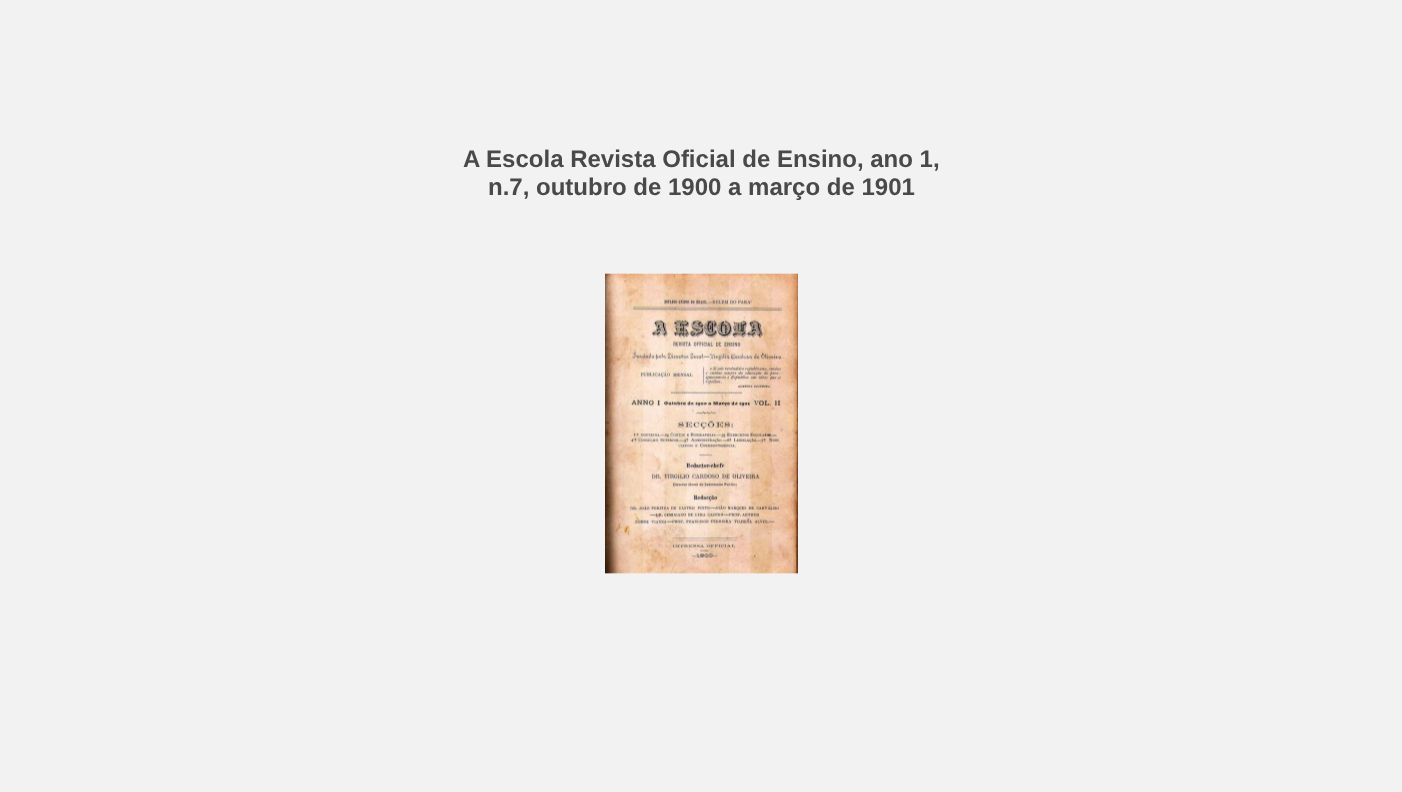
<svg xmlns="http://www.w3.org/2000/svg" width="1402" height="792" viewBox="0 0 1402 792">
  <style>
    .t1 { font: bold 24px Liberation Sans; fill: #4a4949; }
  </style>
  <rect width="100%" height="100%" fill="#f2f2f2"/>
  <text x="463" y="167" class="t1">A Escola Revista Oficial de Ensino, ano 1,</text>
  <text x="488" y="195" class="t1">n.7, outubro de 1900 a março de 1901</text>
  <image x="605" y="273" width="193" height="301" href="images/1.png"/>
  <image x="605" y="273" width="193" height="301" href="images/2.png"/>
</svg>
